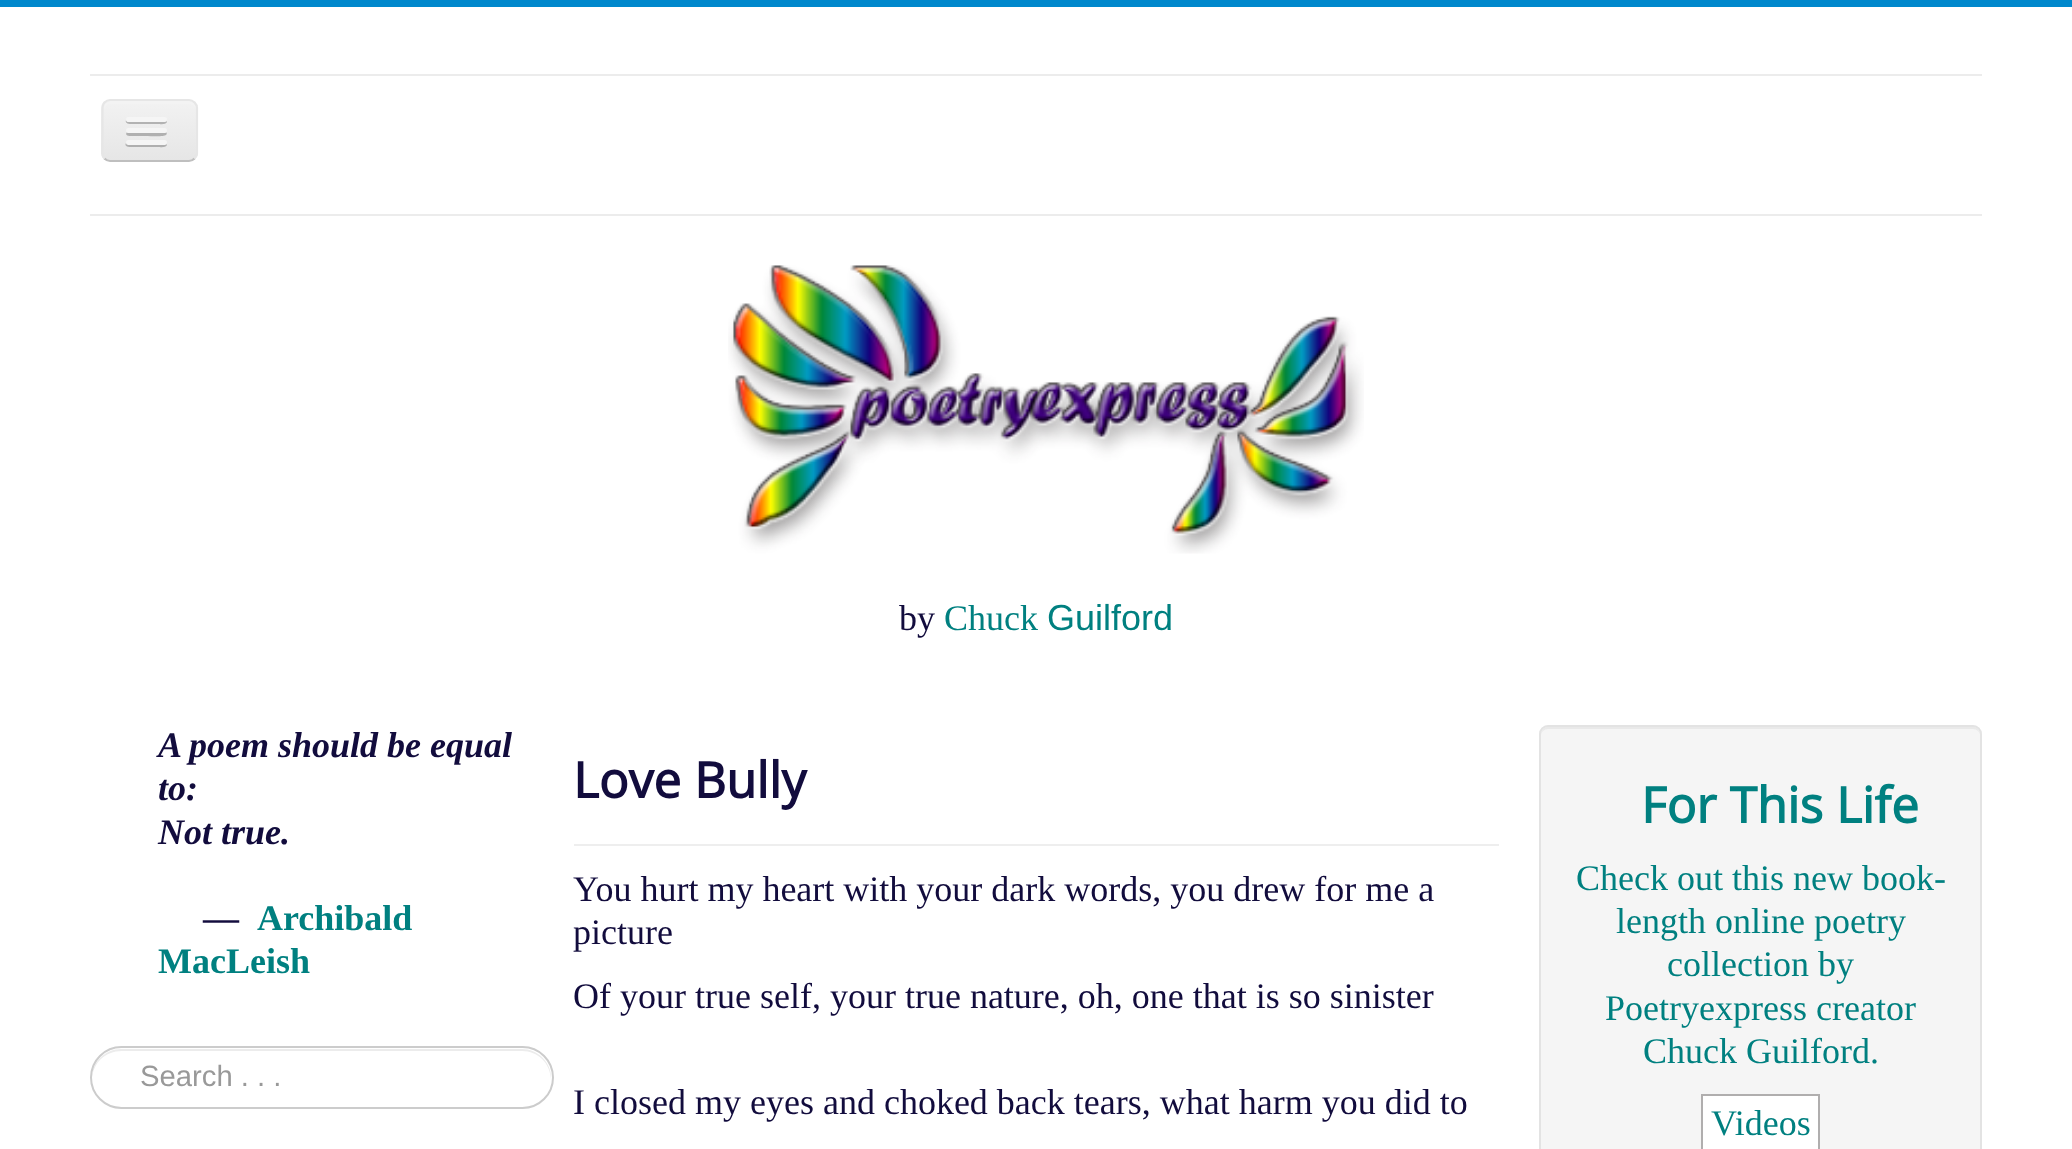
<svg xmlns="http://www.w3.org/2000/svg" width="2072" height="1149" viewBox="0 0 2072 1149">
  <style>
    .t1 { font: 36px Liberation Serif; fill: #120c3d; }
    .t2 { font: 36px Liberation Serif; fill: #008080; }
    .t3 { font: 36px Liberation Sans; fill: #008080; }
    .t4 { font: italic bold 36px Liberation Serif; fill: #120c3d; }
    .t5 { font: bold 36px Liberation Serif; fill: #120c3d; }
    .t6 { font: bold 36px Liberation Serif; fill: #008080; }
    .t7 { font: 29.25px Liberation Sans; fill: #999; }
    .t8 { font: bold 49.5px Open Sans; fill: #120c3d; }
    .t9 { font: bold 49.5px Open Sans; fill: #008080; }
  </style>
  <defs>
    <clipPath id="clip1"><rect x="101" y="99" width="97" height="63" rx="9"/></clipPath>
    <linearGradient id="g1" gradientUnits="userSpaceOnUse" x1="150" y1="101" x2="150" y2="160"><stop offset="0" stop-color="#f2f2f2"/><stop offset="1" stop-color="#e6e6e6"/></linearGradient>
  </defs>
  <rect width="100%" height="100%" fill="#fff"/>
  <rect x="0" y="0" width="2072" height="7" fill="#08c"/>
  <rect x="90" y="74" width="1892" height="2" fill="#ececec"/>
  <rect x="90" y="214" width="1892" height="2" fill="#ececec"/>
  <g clip-path="url(#clip1)">
    <rect x="101" y="101" width="97" height="59" fill="url(#g1)"/>
  </g>
  <path d="M110 104H189C193 104 196 107 196 110C196 98 185 101 176 101H124C115 101 104 98 104 110C104 107 107 104 110 104Z" fill="#f3f3f3"/>
  <path d="M194.5 158.5C193 160 191 161 189 161H110C108 161 106 160 104.5 158.5" fill="none" stroke="#bfbfbf" stroke-width="2.2"/>
  <path d="M104.5 158.5C103 157 102.5 155 102.5 153V108C102.5 106 103 104 104.5 102.5C106 101 108 100 110 100H189C191 100 193 101 194.5 102.5C196 104 197 106 197 108V153C197 155 196 157 194.5 158.5" fill="none" stroke="#e6e6e6" stroke-width="2.2"/>
  <path d="M126 120C124 125 134 124 134 124H158C160 124 166 125 167 122L166 120C166 121 165 122 164 122H128C127 122 127 121 126 120Z" fill="#b2b2b2"/>
  <rect x="126" y="117" width="41" height="5" rx="2.5" fill="#f5f5f5"/>
  <path d="M127 132C123 137 134 136 134 136H146C150 136 164 137 166 135C167 134 167 133 166 132L165 133H128Z" fill="#b0b0b0"/>
  <rect x="126" y="128" width="41" height="5" rx="2.5" fill="#f5f5f5"/>
  <path d="M126 143C123 148 134 147 134 147H158C160 147 166 148 167 145L166 143L165 144H128Z" fill="#afafaf"/>
  <rect x="126" y="140" width="41" height="5" rx="2.5" fill="#f5f5f5"/>
  <image x="728" y="265" width="636" height="289" href="images/1.png"/>
  <text x="899" y="630" class="t1">by</text>
  <text x="944" y="630" class="t2">Chuck</text>
  <text x="1047" y="630" class="t3">Guilford</text>
  <text x="158" y="757" class="t4">A poem should be equal</text>
  <text x="158" y="800" class="t4">to:</text>
  <text x="158" y="844" class="t4">Not true.</text>
  <text x="203" y="930" class="t5">—</text>
  <text x="257" y="930" class="t6">Archibald</text>
  <text x="158" y="973" class="t6">MacLeish</text>
  <path d="M122 1051H522C538 1051 550 1063 551 1079C552 1063 538 1049 522 1049H121C105 1049 91 1063 92 1079C93 1063 105 1051 122 1051Z" fill="#ececec"/>
  <rect x="91" y="1047" width="462" height="61" rx="30.5" fill="none" stroke="#ccc" stroke-width="2"/>
  <text x="140" y="1086" class="t7">Search . . .</text>
  <rect x="574" y="844" width="925" height="2" fill="#eee"/>
  <text x="573" y="798" class="t8">Love Bully</text>
  <text x="573" y="901" class="t1">You hurt my heart with your dark words, you drew for me a</text>
  <text x="573" y="944" class="t1">picture</text>
  <text x="573" y="1008" class="t1">Of your true self, your true nature, oh, one that is so sinister</text>
  <text x="573" y="1114" class="t1">I closed my eyes and choked back tears, what harm you did to</text>
  <rect x="1539" y="725" width="443" height="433" rx="9" fill="#f5f5f5"/>
  <path d="M1548 729H1973C1977 729 1980 732 1980 736C1980 732 1978 727 1973 727H1548C1543 727 1541 732 1541 736C1541 732 1544 729 1548 729Z" fill="#e9e9e9"/>
  <rect x="1540" y="726" width="441" height="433" rx="8" fill="none" stroke="#e3e3e3" stroke-width="2"/>
  <text x="1641" y="823" class="t9">For This Life</text>
  <text x="1576" y="890" class="t2">Check out this new book-</text>
  <text x="1616" y="933" class="t2">length online poetry</text>
  <text x="1667" y="976" class="t2">collection by</text>
  <text x="1605" y="1020" class="t2">Poetryexpress creator</text>
  <text x="1643" y="1063" class="t2">Chuck Guilford.</text>
  <rect x="1703" y="1096" width="115" height="53" fill="#fff"/>
  <rect x="1701" y="1094" width="119" height="2" fill="#b0aeae"/>
  <rect x="1818" y="1094" width="2" height="55" fill="#b0aeae"/>
  <rect x="1701" y="1094" width="2" height="55" fill="#b0aeae"/>
  <text x="1711" y="1135" class="t2">Videos</text>
</svg>
